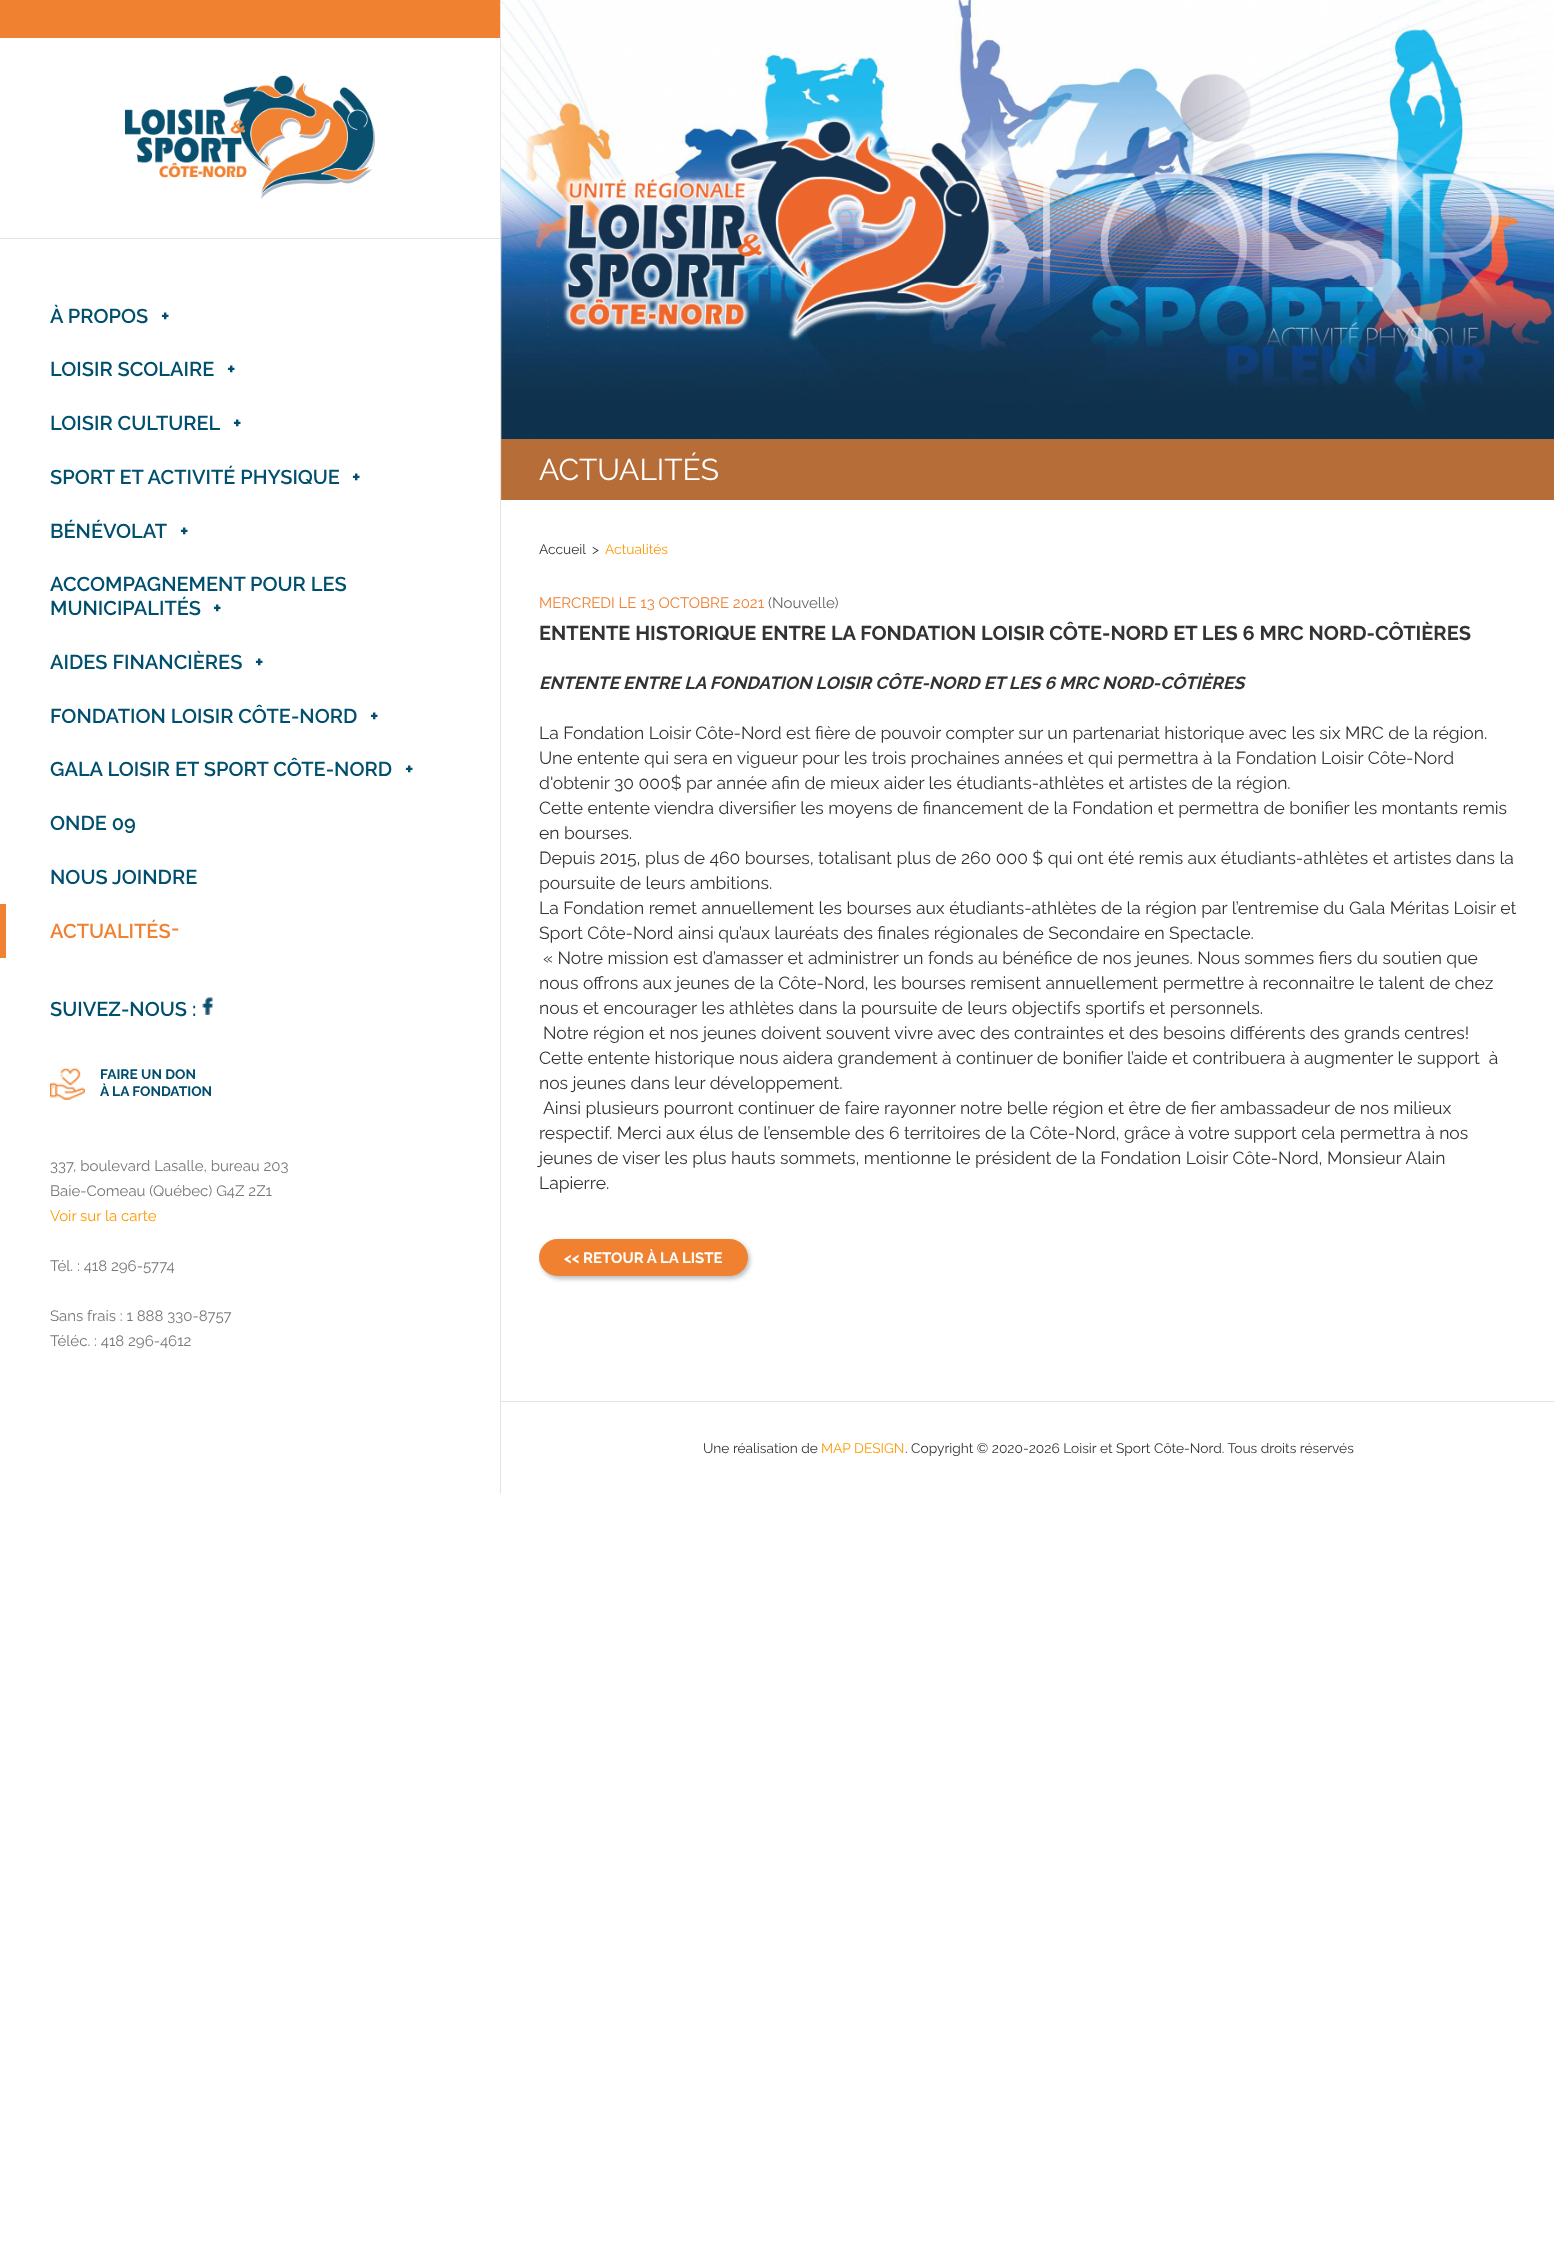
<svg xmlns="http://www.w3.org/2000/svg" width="1554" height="2266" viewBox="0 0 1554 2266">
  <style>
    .t1 { font: 600 20px Raleway; fill: #004f6e; }
    .t2 { font: bold 20px Raleway; fill: #004f6e; }
    .t3 { font: 600 20px Raleway; fill: #ef8131; }
    .t4 { font: bold 13.75px Raleway; fill: #004f6e; }
    .t5 { font: 15px Raleway; fill: #777; }
    .t6 { font: 15px Raleway; fill: #f90; }
    .t7 { font: 30px Raleway; fill: #fff; }
    .t8 { font: 13.75px Raleway; fill: #333; }
    .t9 { font: 13.75px Raleway; fill: #f90; }
    .t10 { font: 15px Raleway; fill: #ef8131; }
    .t11 { font: 15px Raleway; fill: #666; }
    .t12 { font: bold 20px Raleway; fill: #333; }
    .t13 { font: italic bold 17.5px Raleway; fill: #333; }
    .t14 { font: 17.5px Raleway; fill: #333; }
    .t15 { font: bold 15px Raleway; fill: #fff; }
  </style>
  <rect width="100%" height="100%" fill="#fff"/>
  <rect x="500" y="0" width="1" height="1494" fill="#e2e3e2"/>
  <rect x="0" y="0" width="500" height="38" fill="#ef8131"/>
  <rect x="0" y="238" width="500" height="1" fill="#e2e3e2"/>
  <image x="125" y="75" width="250" height="124" href="images/1.png"/>
  <text x="50" y="323" class="t1">À PROPOS</text>
  <text x="161" y="323" class="t2">+</text>
  <text x="50" y="376" class="t1">LOISIR SCOLAIRE</text>
  <text x="227" y="376" class="t2">+</text>
  <text x="50" y="430" class="t1">LOISIR CULTUREL</text>
  <text x="233" y="430" class="t2">+</text>
  <text x="50" y="484" class="t1">SPORT ET ACTIVITÉ PHYSIQUE</text>
  <text x="352" y="484" class="t2">+</text>
  <text x="50" y="538" class="t1">BÉNÉVOLAT</text>
  <text x="180" y="538" class="t2">+</text>
  <text x="50" y="591" class="t1">ACCOMPAGNEMENT POUR LES</text>
  <text x="50" y="615" class="t1">MUNICIPALITÉS</text>
  <text x="213" y="615" class="t2">+</text>
  <text x="50" y="669" class="t1">AIDES FINANCIÈRES</text>
  <text x="255" y="669" class="t2">+</text>
  <text x="50" y="723" class="t1">FONDATION LOISIR CÔTE-NORD</text>
  <text x="370" y="723" class="t2">+</text>
  <text x="50" y="776" class="t1">GALA LOISIR ET SPORT CÔTE-NORD</text>
  <text x="405" y="776" class="t2">+</text>
  <text x="50" y="830" class="t1">ONDE 09</text>
  <text x="50" y="884" class="t1">NOUS JOINDRE</text>
  <rect x="0" y="904" width="6" height="54" fill="#ef8131"/>
  <text x="50" y="938" class="t3">ACTUALITÉS</text>
  <text x="171" y="935" class="t3">-</text>
  <text x="50" y="1016" class="t1">SUIVEZ-NOUS :</text>
  <image x="202" y="997" width="11" height="18" href="images/2.png"/>
  <image x="50" y="1068" width="35" height="32" href="images/3.png"/>
  <text x="100" y="1079" class="t4">FAIRE UN DON</text>
  <text x="100" y="1096" class="t4">À LA FONDATION</text>
  <text x="50" y="1171" class="t5">337, boulevard Lasalle, bureau 203</text>
  <text x="50" y="1196" class="t5">Baie-Comeau (Québec) G4Z 2Z1</text>
  <text x="50" y="1221" class="t6">Voir sur la carte</text>
  <text x="50" y="1271" class="t5">Tél. : 418 296-5774</text>
  <text x="50" y="1321" class="t5">Sans frais : 1 888 330-8757</text>
  <text x="50" y="1346" class="t5">Téléc. : 418 296-4612</text>
  <image x="501" y="0" width="1053" height="500" href="images/4.png"/>
  <rect x="501" y="439" width="1053" height="61" fill="#ef8131bf"/>
  <text x="539" y="480" class="t7">ACTUALITÉS</text>
  <text x="539" y="554" class="t8">Accueil</text>
  <text x="592" y="554" class="t8">&gt;</text>
  <text x="605" y="554" class="t9">Actualités</text>
  <text x="539" y="608" class="t10">MERCREDI LE 13 OCTOBRE 2021</text>
  <text x="768" y="608" class="t11">(Nouvelle)</text>
  <text x="539" y="640" class="t12">ENTENTE HISTORIQUE ENTRE LA FONDATION LOISIR CÔTE-NORD ET LES 6 MRC NORD-CÔTIÈRES</text>
  <text x="539" y="689" class="t13">ENTENTE ENTRE LA FONDATION LOISIR CÔTE-NORD ET LES 6 MRC NORD-CÔTIÈRES</text>
  <text x="539" y="739" class="t14">La Fondation Loisir Côte-Nord est fière de pouvoir compter sur un partenariat historique avec les six MRC de la région.</text>
  <text x="539" y="764" class="t14">Une entente qui sera en vigueur pour les trois prochaines années et qui permettra à la Fondation Loisir Côte-Nord</text>
  <text x="539" y="789" class="t14">d'obtenir 30 000$ par année afin de mieux aider les étudiants-athlètes et artistes de la région.</text>
  <text x="539" y="814" class="t14">Cette entente viendra diversifier les moyens de financement de la Fondation et permettra de bonifier les montants remis</text>
  <text x="539" y="839" class="t14">en bourses.</text>
  <text x="539" y="864" class="t14">Depuis 2015, plus de 460 bourses, totalisant plus de 260 000 $ qui ont été remis aux étudiants-athlètes et artistes dans la</text>
  <text x="539" y="889" class="t14">poursuite de leurs ambitions.</text>
  <text x="539" y="914" class="t14">La Fondation remet annuellement les bourses aux étudiants-athlètes de la région par l’entremise du Gala Méritas Loisir et</text>
  <text x="539" y="939" class="t14">Sport Côte-Nord ainsi qu’aux lauréats des finales régionales de Secondaire en Spectacle.</text>
  <text x="543" y="964" class="t14">« Notre mission est d’amasser et administrer un fonds au bénéfice de nos jeunes. Nous sommes fiers du soutien que</text>
  <text x="539" y="989" class="t14">nous offrons aux jeunes de la Côte-Nord, les bourses remisent annuellement permettre à reconnaitre le talent de chez</text>
  <text x="539" y="1014" class="t14">nous et encourager les athlètes dans la poursuite de leurs objectifs sportifs et personnels.</text>
  <text x="543" y="1039" class="t14">Notre région et nos jeunes doivent souvent vivre avec des contraintes et des besoins différents des grands centres!</text>
  <text x="539" y="1064" class="t14" xml:space="preserve">Cette entente historique nous aidera grandement à continuer de bonifier l’aide et contribuera à augmenter le support  à</text>
  <text x="539" y="1089" class="t14">nos jeunes dans leur développement.</text>
  <text x="543" y="1114" class="t14">Ainsi plusieurs pourront continuer de faire rayonner notre belle région et être de fier ambassadeur de nos milieux</text>
  <text x="539" y="1139" class="t14">respectif. Merci aux élus de l’ensemble des 6 territoires de la Côte-Nord, grâce à votre support cela permettra à nos</text>
  <text x="539" y="1164" class="t14">jeunes de viser les plus hauts sommets, mentionne le président de la Fondation Loisir Côte-Nord, Monsieur Alain</text>
  <text x="539" y="1189" class="t14">Lapierre.</text>
  <rect x="541" y="1241" width="209" height="38" rx="19" fill="#00000040" filter="blur(2px)"/>
  <rect x="539" y="1239" width="209" height="37" rx="18.5" fill="#ef8131"/>
  <text x="564" y="1263" class="t15">&lt;&lt; RETOUR À LA LISTE</text>
  <rect x="501" y="1401" width="1053" height="1" fill="#e2e3e2"/>
  <text x="703" y="1453" class="t8">Une réalisation de</text>
  <text x="821" y="1453" class="t9">MAP DESIGN</text>
  <text x="905" y="1453" class="t8">. Copyright © 2020-2026 Loisir et Sport Côte-Nord. Tous droits réservés</text>
</svg>
